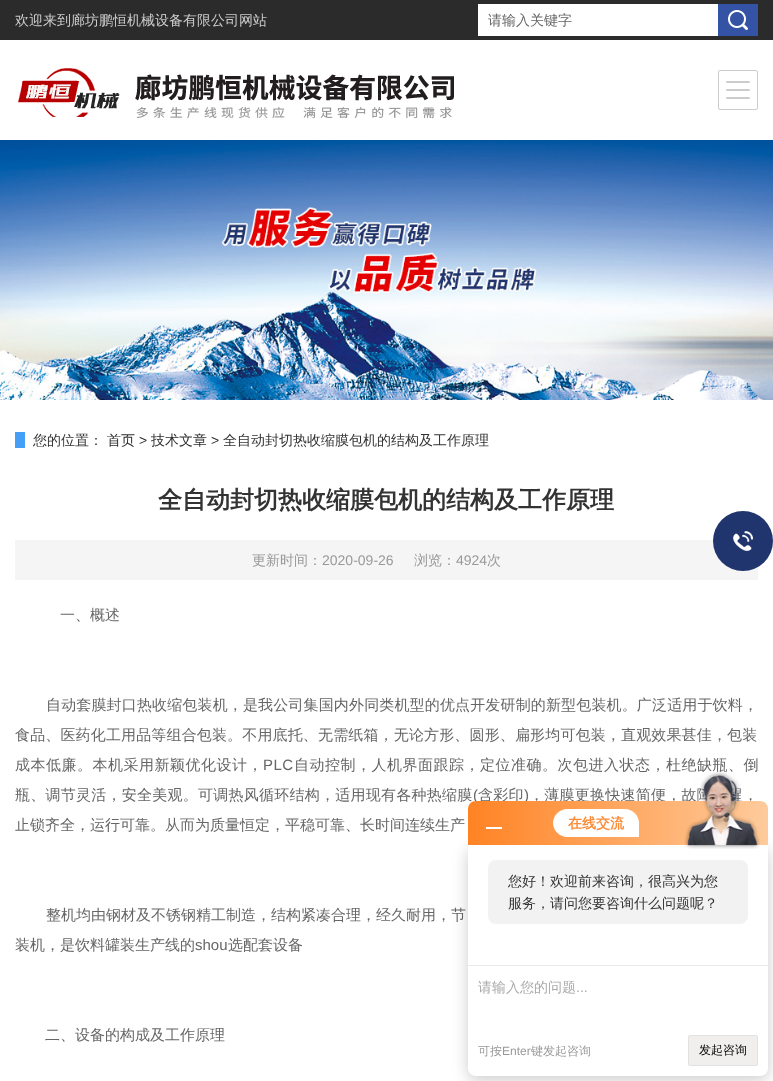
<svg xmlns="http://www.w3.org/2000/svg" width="773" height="1081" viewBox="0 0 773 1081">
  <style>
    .t1 { font: 500 14px WenQuanYi Zen Hei; fill: #ccc; }
    .t2 { font: 500 14px WenQuanYi Zen Hei; fill: #666; }
    .t3 { font: 500 14px WenQuanYi Zen Hei; fill: #333; }
    .t4 { font: 500 14px WenQuanYi Zen Hei; fill: #2d2d2e; }
    .t5 { font: 14px Liberation Sans; fill: #333; }
    .t6 { font: bold 24px WenQuanYi Zen Hei; fill: #333; }
    .t7 { font: 500 14px WenQuanYi Zen Hei; fill: #999; }
    .t8 { font: 14px Liberation Sans; fill: #999; }
    .t9 { font: 500 15px WenQuanYi Zen Hei; fill: #666; }
    .t10 { font: 500 15px WenQuanYi Zen Hei; letter-spacing: 0.15px; fill: #666; }
    .t11 { font: 500 15px WenQuanYi Zen Hei; letter-spacing: 0.5px; fill: #666; }
    .t12 { font: 15px Liberation Sans; letter-spacing: 0.5px; fill: #666; }
    .t13 { font: 500 15px WenQuanYi Zen Hei; letter-spacing: 0.25px; fill: #666; }
    .t14 { font: 15px Liberation Sans; letter-spacing: 0.25px; fill: #666; }
    .t15 { font: 15px Liberation Sans; fill: #666; }
    .t16 { font: bold 14px WenQuanYi Zen Hei; fill: #fb8b36; }
    .t17 { font: 500 14px WenQuanYi Zen Hei; fill: #aaa; }
    .t18 { font: 14px Liberation Sans; fill: #aaa; }
    .t19 { font: 500 12px WenQuanYi Zen Hei; fill: #999; }
    .t20 { font: 12px Liberation Sans; fill: #999; }
    .t21 { font: 500 12px WenQuanYi Zen Hei; fill: #000; }
  </style>
  <defs>
    <linearGradient id="g1" gradientUnits="userSpaceOnUse" x1="468" y1="823" x2="768" y2="823"><stop offset="0" stop-color="#ff8324"/><stop offset="1" stop-color="#fecb9c"/></linearGradient>
  </defs>
  <rect width="100%" height="100%" fill="#fff"/>
  <rect x="0" y="0" width="773" height="40" fill="#2b2b2b"/>
  <text x="15" y="25" class="t1">欢迎来到廊坊鹏恒机械设备有限公司网站</text>
  <rect x="478" y="4" width="240" height="32" fill="#fff"/>
  <text x="488" y="25" class="t2">请输入关键字</text>
  <rect x="718" y="4" width="40" height="32" fill="#3453a5"/>
  <image x="728" y="10" width="20" height="20" href="images/1.png"/>
  <image x="18" y="68" width="436" height="51" href="images/2.png"/>
  <rect x="718.5" y="70.5" width="39" height="39" rx="1.5" fill="none" stroke="#ccc"/>
  <rect x="726" y="81" width="24" height="2" rx="1" fill="#ccc"/>
  <rect x="726" y="89" width="24" height="2" rx="1" fill="#ccc"/>
  <rect x="726" y="97" width="24" height="2" rx="1" fill="#ccc"/>
  <image x="0" y="140" width="773" height="260" href="images/3.png"/>
  <text x="33" y="445" class="t3">您的位置：</text>
  <rect x="15" y="432" width="10" height="16" fill="#469ff7"/>
  <text x="107" y="445" class="t4">首页</text>
  <text x="139" y="445" class="t5">&gt;</text>
  <text x="151" y="445" class="t4">技术文章</text>
  <text x="211" y="445" class="t5">&gt;</text>
  <text x="223" y="445" class="t3">全自动封切热收缩膜包机的结构及工作原理</text>
  <text x="158" y="508" class="t6">全自动封切热收缩膜包机的结构及工作原理</text>
  <rect x="15" y="540" width="743" height="40" fill="#f5f5f5"/>
  <text x="252" y="565" class="t7">更新时间：</text>
  <text x="322" y="565" class="t8">2020-09-26</text>
  <text x="414" y="565" class="t7">浏览：</text>
  <text x="456" y="565" class="t8">4924</text>
  <text x="487" y="565" class="t7">次</text>
  <text x="60" y="620" class="t9">一、概述</text>
  <text x="46" y="710" class="t10">自动套膜封口热收缩包装机，是我公司集国内外同类机型的优点开发研制的新型包装机。广泛适用于饮料，</text>
  <text x="15" y="740" class="t10">食品、医药化工用品等组合包装。不用底托、无需纸箱，无论方形、圆形、扁形均可包装，直观效果甚佳，包装</text>
  <text x="15" y="770" class="t11">成本低廉。本机采用新颖优化设计，</text>
  <text x="263" y="770" class="t12">PLC</text>
  <text x="294" y="770" class="t11">自动控制，人机界面跟踪，定位准确。次包进入状态，杜绝缺瓶、倒</text>
  <text x="15" y="800" class="t13">瓶、调节灵活，安全美观。可调热风循环结构，适用现有各种热缩膜</text>
  <text x="473" y="800" class="t14">(</text>
  <text x="478" y="800" class="t13">含彩印</text>
  <text x="524" y="800" class="t14">)</text>
  <text x="529" y="800" class="t13">，薄膜更换快速简便，故障提醒</text>
  <text x="743" y="800" class="t9">，</text>
  <text x="15" y="830" class="t9">止锁齐全，运行可靠。从而为质量恒定，平稳可靠、长时间连续生产</text>
  <text x="46" y="920" class="t9">整机均由钢材及不锈钢精工制造，结构紧凑合理，经久耐用，节</text>
  <text x="15" y="950" class="t9">装机，是饮料罐装生产线的</text>
  <text x="195" y="950" class="t15">shou</text>
  <text x="228" y="950" class="t9">选配套设备</text>
  <text x="45" y="1040" class="t9">二、设备的构成及工作原理</text>
  <circle cx="743" cy="541" r="30" fill="#20356e"/>
  <image x="733" y="531" width="20" height="20" href="images/4.png"/>
  <rect x="468" y="849" width="300" height="231" rx="8" fill="#00000033" filter="blur(8px)"/>
  <path d="M476 801H760C764.5 801 768 804.5 768 809V845H468V809C468 804.5 471.5 801 476 801Z" fill="url(#g1)"/>
  <rect x="486" y="827" width="16" height="2" fill="#fff"/>
  <path d="M567 809H625C632.5 809 639 815.5 639 823V837H567C559.5 837 553 830.5 553 823C553 815.5 559.5 809 567 809Z" fill="#fff"/>
  <text x="568" y="828" class="t16">在线交流</text>
  <path d="M468 845H768V1068C768 1072.5 764.5 1076 760 1076H476C471.5 1076 468 1072.5 468 1068Z" fill="#fff"/>
  <image x="684" y="771" width="76" height="78" href="images/5.png"/>
  <rect x="488" y="860" width="260" height="64" rx="8" fill="#f2f2f2"/>
  <text x="508" y="886" class="t3">您好！欢迎前来咨询，很高兴为您</text>
  <text x="508" y="908" class="t3">服务，请问您要咨询什么问题呢？</text>
  <rect x="468" y="965" width="300" height="1" fill="#eaeaea"/>
  <text x="478" y="992" class="t17">请输入您的问题</text>
  <text x="576" y="992" class="t18">...</text>
  <text x="478" y="1055" class="t19">可按</text>
  <text x="502" y="1055" class="t20">Enter</text>
  <text x="531" y="1055" class="t19">键发起咨询</text>
  <rect x="688.5" y="1035.5" width="69" height="30" rx="1.5" fill="#f0efed" stroke="#e2e2e2"/>
  <text x="699" y="1054" class="t21">发起咨询</text>
</svg>
